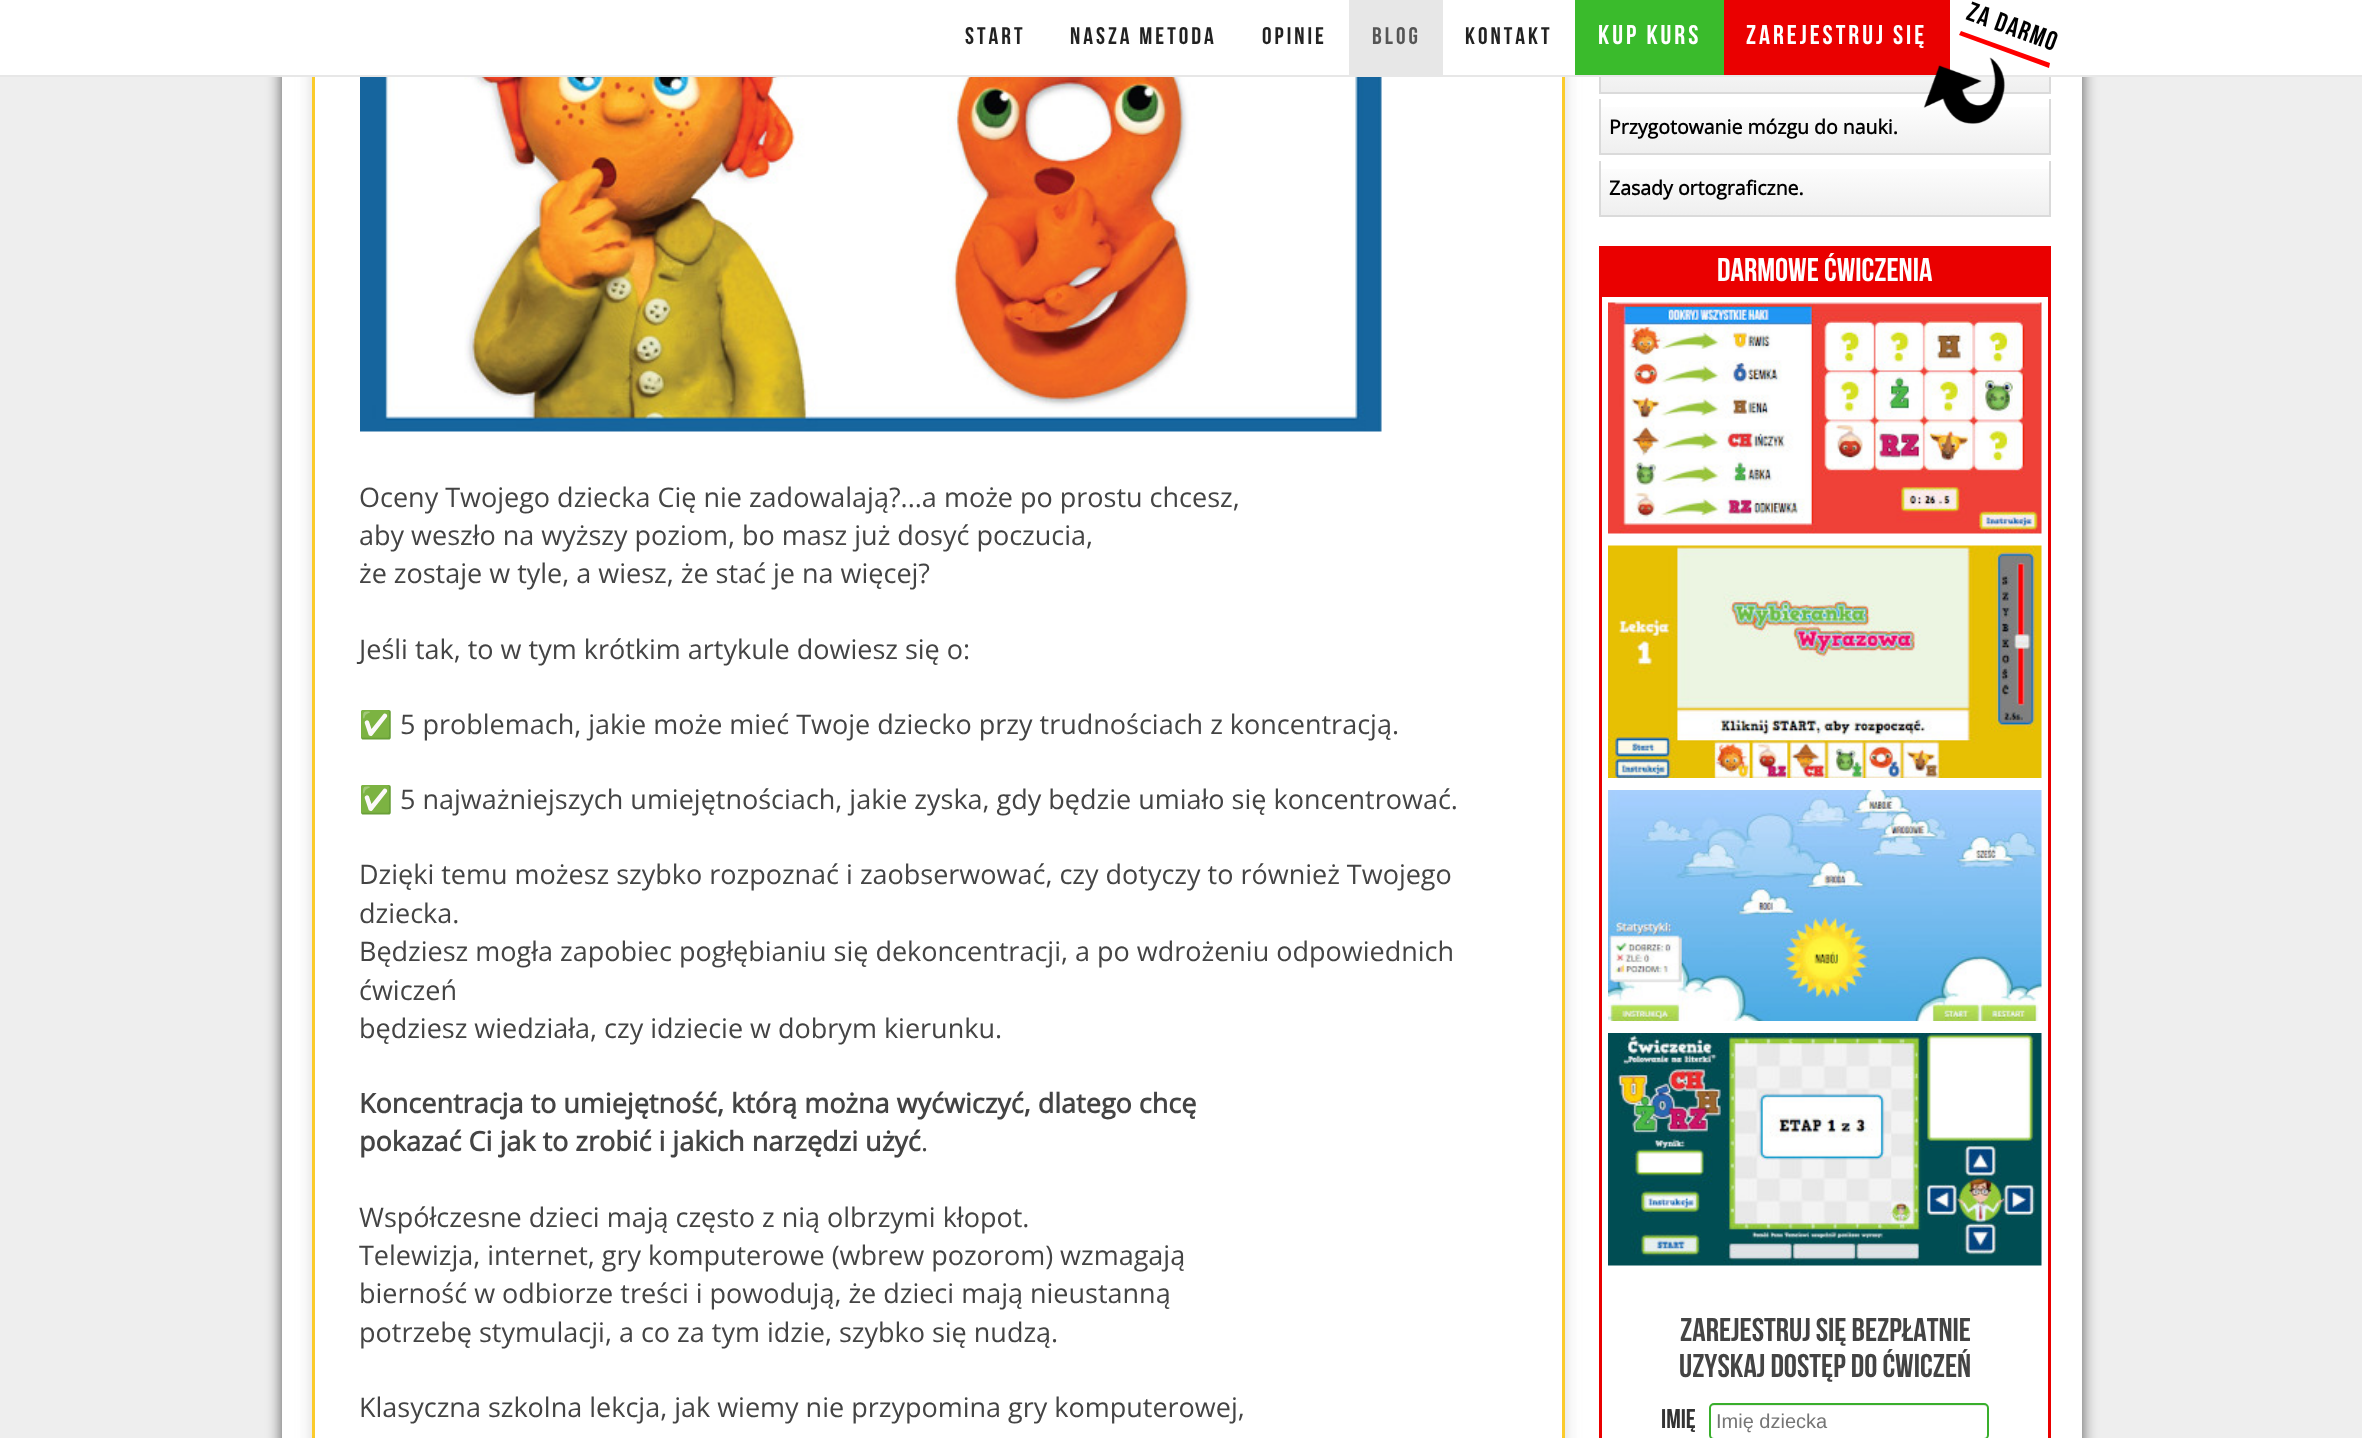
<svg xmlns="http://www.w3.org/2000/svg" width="2362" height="1438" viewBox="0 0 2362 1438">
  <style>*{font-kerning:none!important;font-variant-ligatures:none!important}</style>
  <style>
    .t1 { font: bold 24px Bebas Neue; letter-spacing: 3px; fill: #222; }
    .t2 { font: bold 24px Bebas Neue; letter-spacing: 3px; fill: #555; }
    .t3 { font: bold 27px Bebas Neue; letter-spacing: 3px; fill: #fff; }
    .t4 { font: bold 27px Bebas Neue; letter-spacing: 1.5px; fill: #000; }
    .t5 { font: 27px Open Sans; fill: #444; }
    .t6 { font: 27px Noto Color Emoji; fill: #444; }
    .t7 { font: bold 27px Open Sans; fill: #444; }
    .t8 { font: bold 19.5px Open Sans; fill: #000; }
    .t9 { font: bold 33px Bebas Neue; fill: #fff; }
    .t10 { font: bold 33px Bebas Neue; fill: #444; }
    .t11 { font: bold 27px Bebas Neue; fill: #333; }
    .t12 { font: 20px Liberation Sans; fill: #757575; }
  </style>
  <defs>
    <clipPath id="clip1"><path d="M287 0H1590V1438H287ZM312-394H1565V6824H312Z" clip-rule="evenodd"/></clipPath>
    <linearGradient id="g1" gradientUnits="userSpaceOnUse" x1="1825" y1="37" x2="1825" y2="92"><stop offset="0" stop-color="#fff"/><stop offset="1" stop-color="#efefef"/></linearGradient>
    <linearGradient id="g2" gradientUnits="userSpaceOnUse" x1="1825" y1="99" x2="1825" y2="153"><stop offset="0" stop-color="#fff"/><stop offset="1" stop-color="#efefef"/></linearGradient>
    <linearGradient id="g3" gradientUnits="userSpaceOnUse" x1="1825" y1="160" x2="1825" y2="215"><stop offset="0" stop-color="#fff"/><stop offset="1" stop-color="#efefef"/></linearGradient>
  </defs>
  <rect width="100%" height="100%" fill="#eee"/>
  <rect x="282" y="-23" width="1800" height="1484" fill="#555" filter="blur(7.5px)"/>
  <rect x="282" y="77" width="1800" height="1361" fill="#fff"/>
  <g clip-path="url(#clip1)">
    <rect x="312" y="-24" width="1253" height="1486" fill="#d8d8d8" filter="blur(8px)"/>
  </g>
  <rect x="313.5" y="-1.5" width="1250" height="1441" fill="none" stroke="#fbcb2c" stroke-width="3"/>
  <rect x="0" y="0" width="2362" height="75" fill="#fff"/>
  <rect x="0" y="75" width="2362" height="2" fill="#e7e7e7"/>
  <text x="965" y="44" class="t1">Start</text>
  <text x="1070" y="44" class="t1">NASZA METODA</text>
  <text x="1262" y="44" class="t1">OPINIE</text>
  <rect x="1349" y="0" width="94" height="75" fill="#e7e7e7"/>
  <text x="1372" y="44" class="t2">BLOG</text>
  <text x="1465" y="44" class="t1">KONTAKT</text>
  <rect x="1575" y="0" width="149" height="75" fill="#3abb2c"/>
  <text x="1598" y="44" class="t3">KUP KURS</text>
  <rect x="1724" y="0" width="226" height="75" fill="#ea0000"/>
  <text x="1746" y="44" class="t3">Zarejestruj się</text>
  <path d="M1961 31L2050 63L2049 68L1959 35Z" fill="#f00"/>
  <text x="1965" y="19" transform="rotate(20 1965 19)" class="t4">ZA DARMO</text>
  <rect x="1601" y="77" width="448" height="15" fill="url(#g1)"/>
  <rect x="2049" y="77" width="2" height="16" fill="#dadada"/>
  <rect x="1599" y="92" width="452" height="2" fill="#dadada"/>
  <rect x="1601" y="107" width="448" height="46" fill="url(#g2)"/>
  <image x="1923" y="57" width="82" height="67" href="images/1.png"/>
  <image x="360" y="77" width="1022" height="355" href="images/2.png"/>
  <text x="359" y="507" class="t5">Oceny Twojego dziecka Cię nie zadowalają?...a może po prostu chcesz,</text>
  <text x="359" y="545" class="t5">aby weszło na wyższy poziom, bo masz już dosyć poczucia,</text>
  <text x="359" y="583" class="t5">że zostaje w tyle, a wiesz, że stać je na więcej?</text>
  <text x="359" y="659" class="t5">Jeśli tak, to w tym krótkim artykule dowiesz się o:</text>
  <text x="359" y="734" class="t6">✅</text>
  <text x="400" y="734" class="t5">5 problemach, jakie może mieć Twoje dziecko przy trudnościach z koncentracją.</text>
  <text x="359" y="809" class="t6">✅</text>
  <text x="400" y="809" class="t5">5 najważniejszych umiejętnościach, jakie zyska, gdy będzie umiało się koncentrować.</text>
  <text x="359" y="884" class="t5">Dzięki temu możesz szybko rozpoznać i zaobserwować, czy dotyczy to również Twojego</text>
  <text x="359" y="923" class="t5">dziecka.</text>
  <text x="359" y="961" class="t5">Będziesz mogła zapobiec pogłębianiu się dekoncentracji, a po wdrożeniu odpowiednich</text>
  <text x="359" y="1000" class="t5">ćwiczeń</text>
  <text x="359" y="1038" class="t5">będziesz wiedziała, czy idziecie w dobrym kierunku.</text>
  <text x="359" y="1113" class="t7">Koncentracja to umiejętność, którą można wyćwiczyć, dlatego chcę</text>
  <text x="359" y="1151" class="t7">pokazać Ci jak to zrobić i jakich narzędzi użyć</text>
  <text x="921" y="1151" class="t5">.</text>
  <text x="359" y="1227" class="t5">Współczesne dzieci mają często z nią olbrzymi kłopot.</text>
  <text x="359" y="1265" class="t5">Telewizja, internet, gry komputerowe (wbrew pozorom) wzmagają</text>
  <text x="359" y="1303" class="t5">bierność w odbiorze treści i powodują, że dzieci mają nieustanną</text>
  <text x="359" y="1342" class="t5">potrzebę stymulacji, a co za tym idzie, szybko się nudzą.</text>
  <text x="359" y="1417" class="t5">Klasyczna szkolna lekcja, jak wiemy nie przypomina gry komputerowej,</text>
  <rect x="1599" y="77" width="2" height="16" fill="#dadada"/>
  <rect x="2049" y="99" width="2" height="56" fill="#dadada"/>
  <rect x="1599" y="153" width="452" height="2" fill="#dadada"/>
  <rect x="1599" y="99" width="2" height="56" fill="#dadada"/>
  <text x="1609" y="134" class="t8">Przygotowanie mózgu do nauki.</text>
  <rect x="1601" y="169" width="448" height="46" fill="url(#g3)"/>
  <rect x="2049" y="161" width="2" height="55" fill="#dadada"/>
  <rect x="1599" y="215" width="452" height="2" fill="#dadada"/>
  <rect x="1599" y="161" width="2" height="55" fill="#dadada"/>
  <text x="1609" y="195" class="t8">Zasady ortograficzne.</text>
  <rect x="1600.5" y="247.5" width="449" height="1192" fill="none" stroke="#ea0000" stroke-width="3"/>
  <rect x="1602" y="249" width="446" height="48" fill="#ea0000"/>
  <text x="1717" y="281" class="t9">Darmowe ćwiczenia</text>
  <image x="1608" y="302" width="434" height="232" href="images/3.png"/>
  <image x="1608" y="545" width="434" height="233" href="images/4.png"/>
  <image x="1608" y="790" width="434" height="231" href="images/5.png"/>
  <image x="1608" y="1033" width="434" height="233" href="images/6.png"/>
  <text x="1680" y="1341" class="t10">Zarejestruj się bezpłatnie</text>
  <text x="1679" y="1377" class="t10">uzyskaj dostęp do ćwiczeń</text>
  <text x="1661" y="1428" class="t11">Imię</text>
  <path d="M1713 1406H1984C1986 1406 1988 1407 1988 1408V1407C1988 1405 1987 1404 1985 1404H1713C1711 1404 1710 1405 1710 1407V1408C1710 1407 1711 1406 1713 1406Z" fill="#ececec"/>
  <rect x="1710" y="1404" width="278" height="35" rx="4" fill="none" stroke="#39af2c" stroke-width="2"/>
  <text x="1716" y="1428" class="t12">Imię dziecka</text>
</svg>
